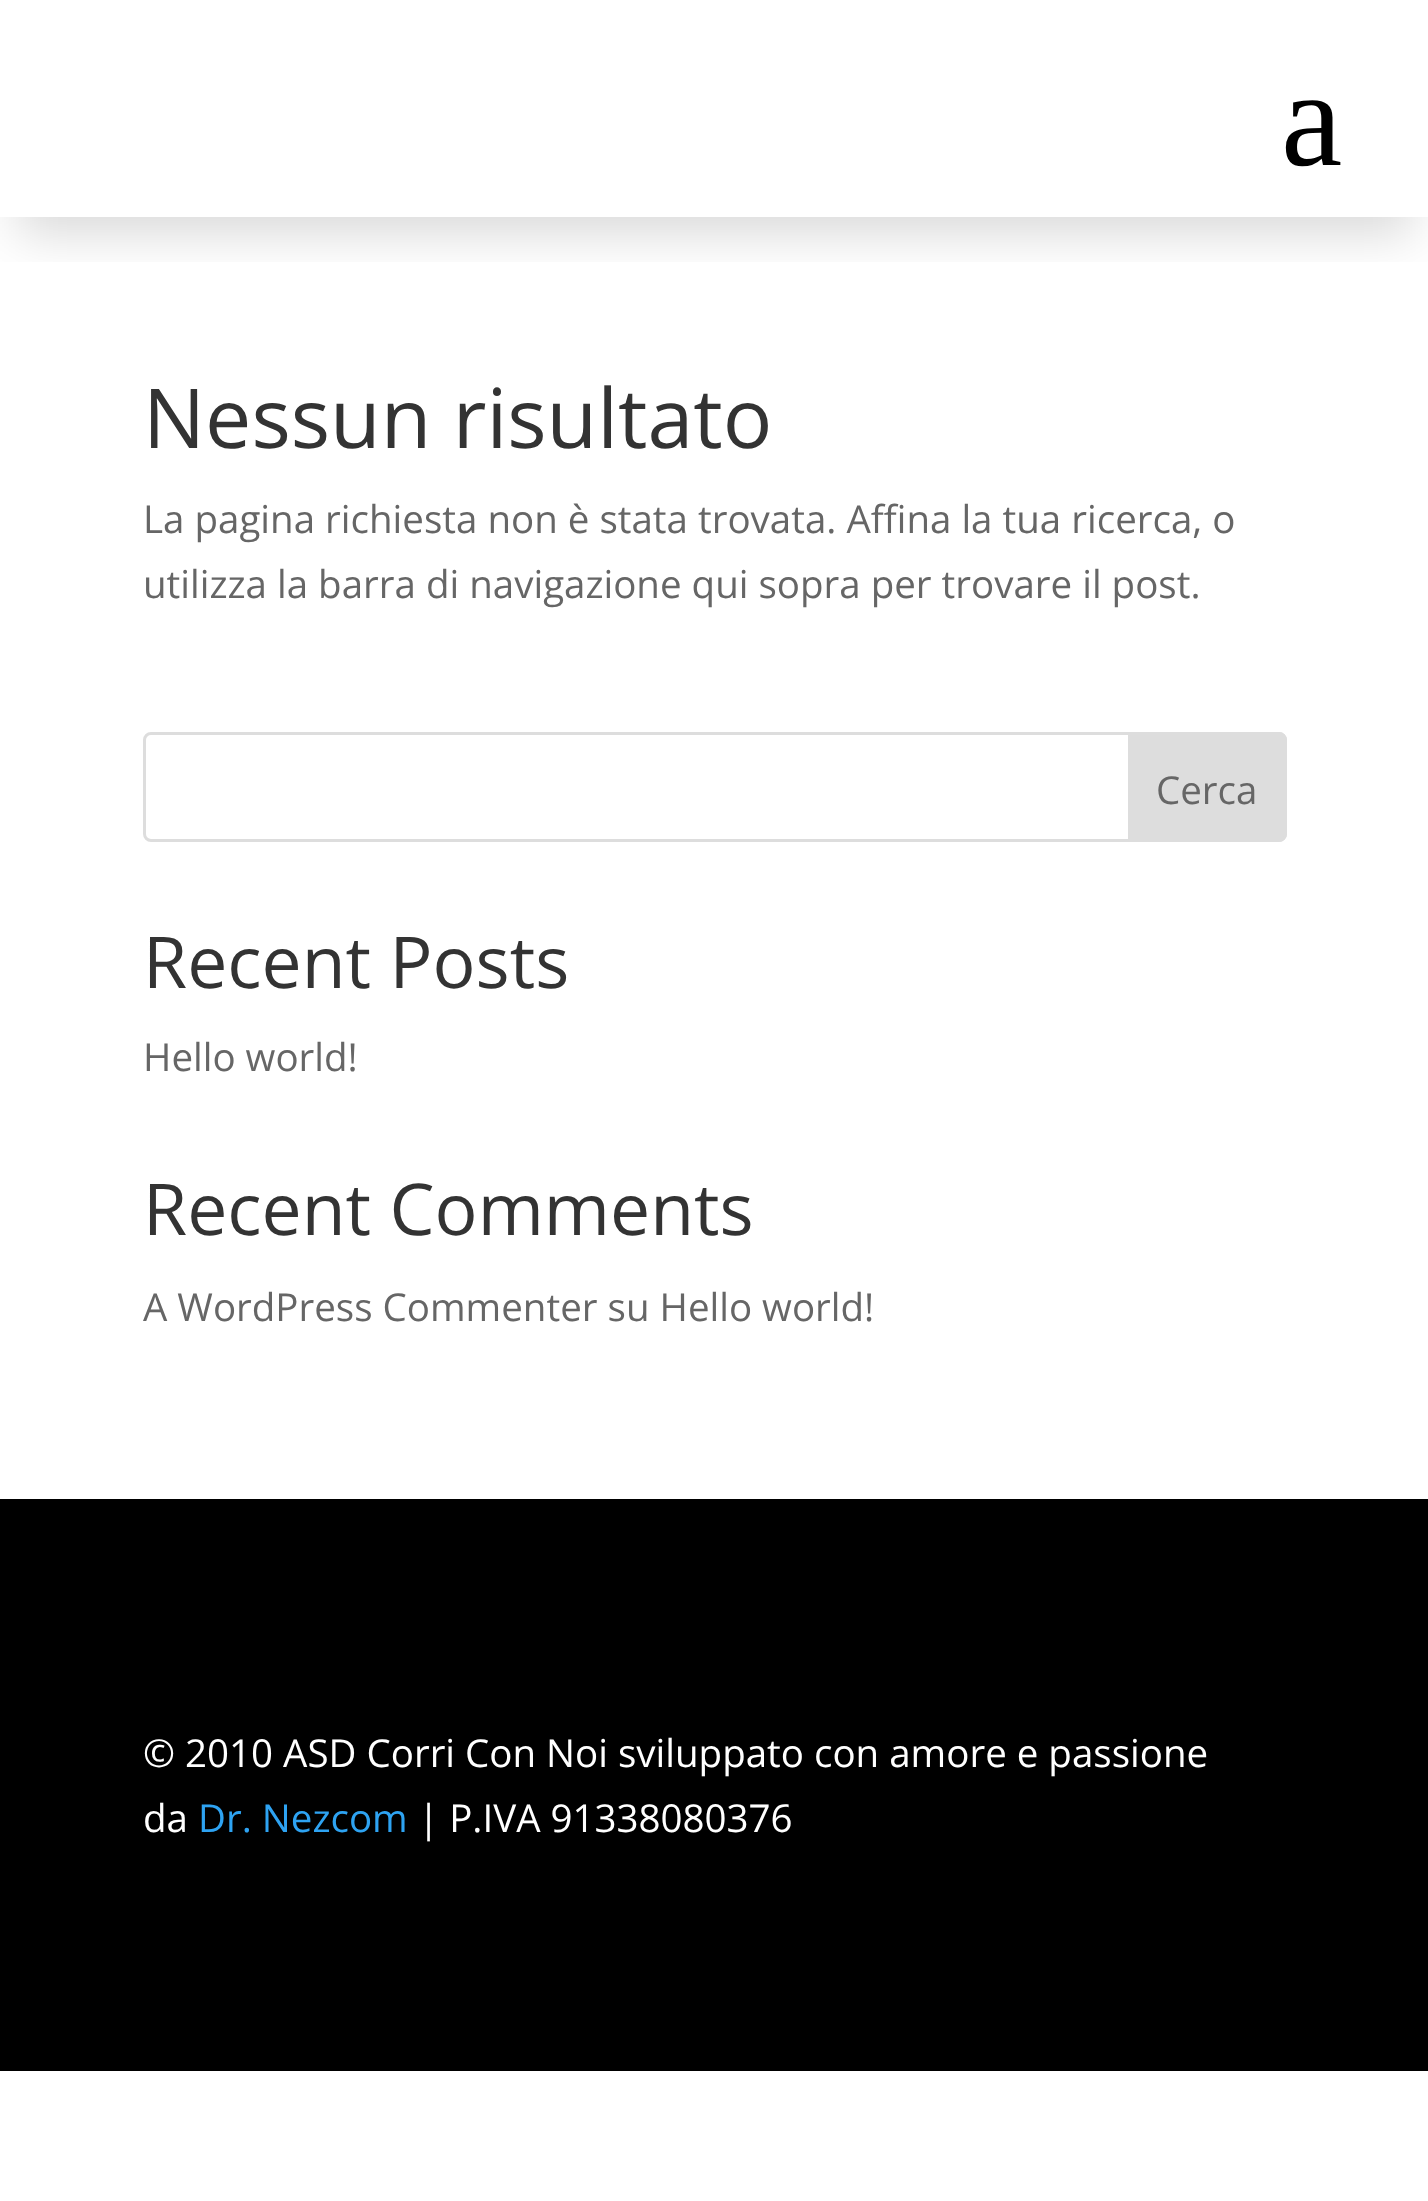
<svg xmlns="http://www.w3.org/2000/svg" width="1428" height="2201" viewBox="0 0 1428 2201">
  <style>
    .t1 { font: 138px Liberation Serif; fill: #000; }
    .t2 { font: 82.5px Open Sans; fill: #333; }
    .t3 { font: 38.5px Open Sans; fill: #666; }
    .t4 { font: 71.5px Open Sans; fill: #333; }
    .t5 { font: 38.5px Open Sans; fill: #fff; }
    .t6 { font: 38.5px Open Sans; fill: #2ea3f2; }
  </style>
  <defs>
    <clipPath id="clip1"><rect x="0" y="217" width="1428" height="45"/></clipPath>
  </defs>
  <rect width="100%" height="100%" fill="#fff"/>
  <g clip-path="url(#clip1)">
    <rect x="17" y="50" width="1397" height="184" fill="#00000026" filter="blur(25px)"/>
  </g>
  <text x="1281" y="165" class="t1">a</text>
  <text x="143" y="448" class="t2">Nessun risultato</text>
  <text x="143" y="533" class="t3">La pagina richiesta non è stata trovata. Affina la tua ricerca, o</text>
  <text x="143" y="598" class="t3">utilizza la barra di navigazione qui sopra per trovare il post.</text>
  <rect x="144.5" y="733.5" width="1141" height="107" rx="6.5" fill="none" stroke="#ddd" stroke-width="3"/>
  <path d="M1129.5 733.5H1279C1282.5 733.5 1285.5 736.5 1285.5 740V834C1285.5 837.5 1282.5 840.5 1279 840.5H1129.5Z" fill="#ddd" stroke="#ddd" stroke-width="3"/>
  <text x="1156" y="804" class="t3">Cerca</text>
  <text x="143" y="988" class="t4">Recent Posts</text>
  <text x="143" y="1071" class="t3">Hello world!</text>
  <text x="143" y="1235" class="t4">Recent Comments</text>
  <text x="143" y="1321" class="t3">A WordPress Commenter su Hello world!</text>
  <rect x="0" y="1499" width="1428" height="572" fill="#000"/>
  <text x="143" y="1767" class="t5">© 2010 ASD Corri Con Noi sviluppato con amore e passione</text>
  <text x="143" y="1832" class="t5">da</text>
  <text x="198" y="1832" class="t6">Dr. Nezcom</text>
  <text x="418" y="1832" class="t5">| P.IVA 91338080376</text>
</svg>
